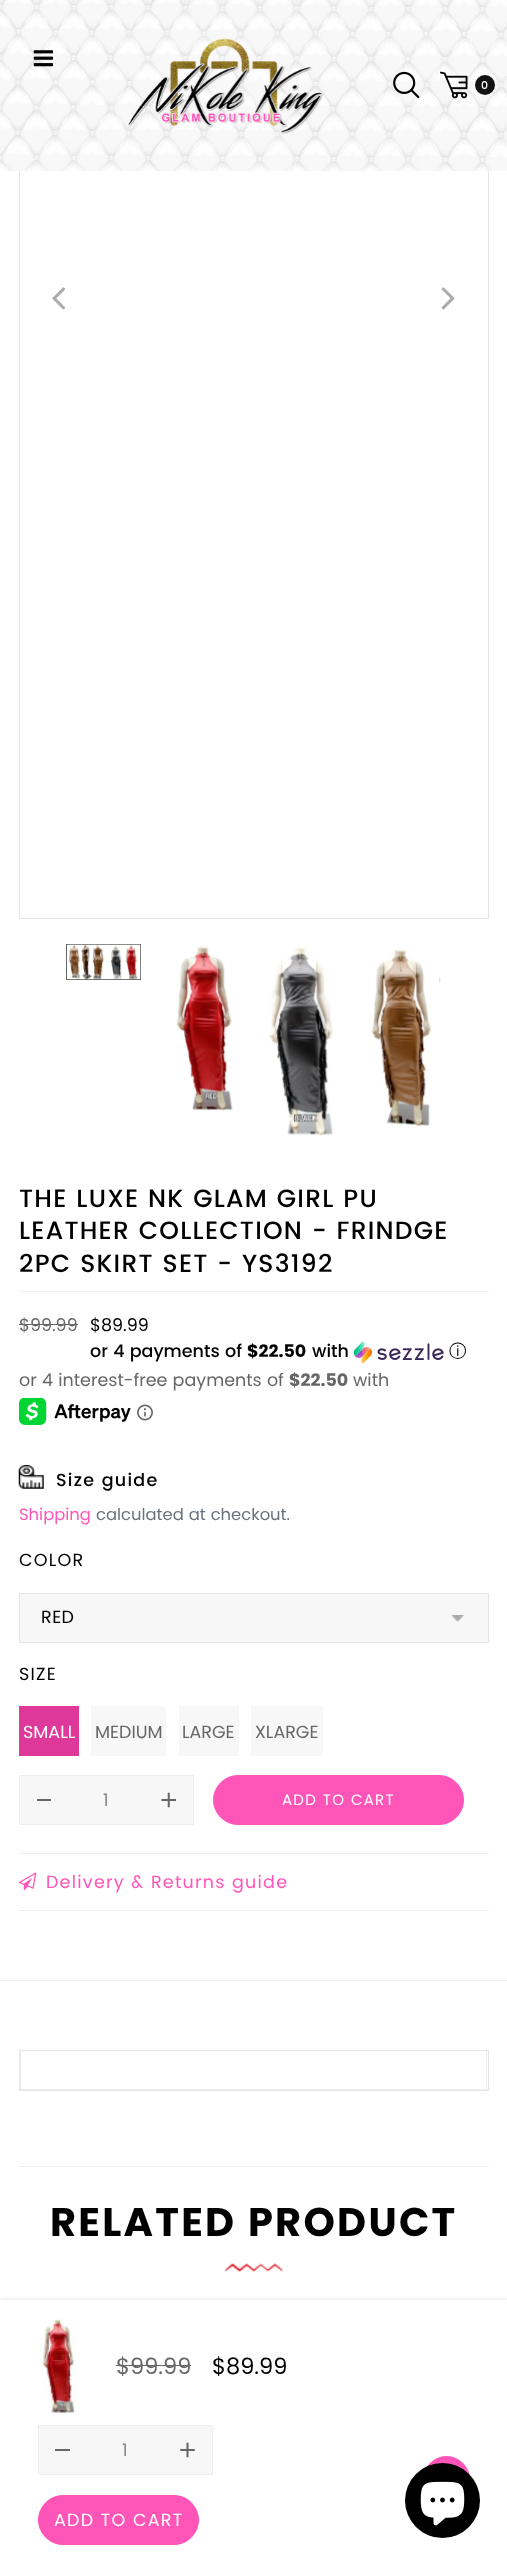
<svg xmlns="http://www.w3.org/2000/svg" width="507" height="2563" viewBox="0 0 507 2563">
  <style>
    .t1 { font: 500 11px Poppins; fill: #fff; }
    .t2 { font: 500 25px Poppins; letter-spacing: 1.25px; fill: #000; }
    .t3 { font: 17.5px Poppins; fill: #666; }
    .t4 { font: 17.5px Poppins; fill: #000; }
    .t5 { font: 500 17.5px Poppins; fill: #000; }
    .t6 { font: bold 17.5px Poppins; fill: #000; }
    .t7 { font: 500 17.5px WenQuanYi Zen Hei; fill: #000; }
    .t8 { font: bold 17.5px Poppins; fill: #666; }
    .t9 { font: 500 17.5px Poppins; letter-spacing: 1.25px; fill: #000; }
    .t10 { font: 16.4px Poppins; fill: #ff55b9; }
    .t11 { font: 16.4px Poppins; fill: #69727b; }
    .t12 { font: 17.5px Poppins; letter-spacing: 1.25px; fill: #000; }
    .t13 { font: 17.5px Poppins; letter-spacing: 0.5px; fill: #000; }
    .t14 { font: 17.5px Poppins; fill: #fff; }
    .t15 { font: 17.5px Poppins; fill: #888; }
    .t16 { font: 15px Poppins; letter-spacing: 1.25px; fill: #fff; }
    .t17 { font: 17.5px Poppins; letter-spacing: 1.25px; fill: #ff55b9; }
    .t18 { font: bold 40px Poppins; letter-spacing: 2.25px; fill: #000; }
    .t19 { font: 22.5px Poppins; fill: #666; }
    .t20 { font: 22.5px Poppins; fill: #000; }
    .t21 { font: 17.5px Poppins; letter-spacing: 1.25px; fill: #fff; }
  </style>
  <defs>
    <clipPath id="clip1"><rect x="90" y="1339" width="376" height="26"/></clipPath>
  </defs>
  <rect width="100%" height="100%" fill="#fff"/>
  <rect x="19.5" y="-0.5" width="469" height="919" fill="none" stroke="#e5e5e5"/>
  <image x="0" y="0" width="507" height="171" href="images/1.png"/>
  <image x="33" y="50" width="21" height="17" href="images/2.png"/>
  <image x="128" y="38" width="196" height="96" href="images/3.png"/>
  <image x="393" y="71" width="27" height="28" href="images/4.png"/>
  <image x="440" y="71" width="28" height="28" href="images/5.png"/>
  <circle cx="485" cy="85" r="10" fill="#141313"/>
  <text x="481" y="89" class="t1">0</text>
  <image x="52" y="287" width="14" height="23" href="images/6.png"/>
  <image x="441" y="287" width="14" height="23" href="images/7.png"/>
  <rect x="66.5" y="944.5" width="74" height="35" fill="none" stroke="#666"/>
  <image x="67" y="944" width="74" height="36" href="images/8.png"/>
  <image x="176" y="946" width="57" height="165" href="images/9.png"/>
  <image x="269" y="947" width="64" height="189" href="images/10.png"/>
  <image x="371" y="949" width="70" height="178" href="images/11.png"/>
  <rect x="19" y="1291" width="470" height="1" fill="#eee"/>
  <text x="19" y="1207" class="t2">THE LUXE NK GLAM GIRL PU</text>
  <text x="19" y="1239" class="t2">LEATHER COLLECTION - FRINDGE</text>
  <text x="19" y="1272" class="t2">2PC SKIRT SET - YS3192</text>
  <text x="19" y="1331" class="t3">$99.99</text>
  <rect x="19" y="1324" width="59" height="1" fill="#666"/>
  <text x="90" y="1331" class="t4">$89.99</text>
  <text x="90" y="1357" class="t5">or 4 payments of</text>
  <text x="247" y="1357" class="t6">$22.50</text>
  <text x="312" y="1357" class="t5">with</text>
  <image x="354" y="1341" width="90" height="23" href="images/12.png"/>
  <g clip-path="url(#clip1)">
    <text x="449" y="1357" class="t7">ⓘ</text>
  </g>
  <text x="19" y="1386" class="t3">or 4 interest-free payments of</text>
  <text x="289" y="1386" class="t8">$22.50</text>
  <text x="353" y="1386" class="t3">with</text>
  <image x="19" y="1398" width="112" height="27" href="images/13.png"/>
  <image x="137" y="1404" width="16" height="17" href="images/14.png"/>
  <image x="18" y="1465" width="26" height="24" href="images/15.png"/>
  <text x="56" y="1486" class="t9">Size guide</text>
  <text x="19" y="1520" class="t10">Shipping</text>
  <text x="96" y="1520" class="t11">calculated at checkout.</text>
  <text x="19" y="1566" class="t12">COLOR</text>
  <rect x="20" y="1594" width="468" height="48" fill="#f7f7f7"/>
  <image x="451" y="1615" width="13" height="7" href="images/16.png"/>
  <rect x="19.5" y="1593.5" width="469" height="49" fill="none" stroke="#e5e5e5"/>
  <text x="41" y="1623" class="t13">RED</text>
  <text x="19" y="1680" class="t12">SIZE</text>
  <rect x="19" y="1706" width="60" height="50" fill="#de399a"/>
  <text x="23" y="1738" class="t14">SMALL</text>
  <rect x="91" y="1706" width="75" height="50" fill="#f7f7f7"/>
  <text x="95" y="1738" class="t3">MEDIUM</text>
  <rect x="179" y="1706" width="60" height="50" fill="#f7f7f7"/>
  <text x="182" y="1738" class="t3">LARGE</text>
  <rect x="251" y="1706" width="72" height="50" fill="#f7f7f7"/>
  <text x="255" y="1738" class="t3">XLARGE</text>
  <rect x="19.5" y="1775.5" width="174" height="49" fill="#f7f7f7" stroke="#eee"/>
  <rect x="37" y="1799" width="14" height="2" fill="#666"/>
  <text x="103" y="1806" class="t15">1</text>
  <image x="161" y="1792" width="15" height="16" href="images/17.png"/>
  <rect x="213.5" y="1775.5" width="250" height="49" rx="24.5" fill="#ff55b9" stroke="#ff55b9"/>
  <text x="282" y="1805" class="t16">ADD TO CART</text>
  <rect x="19" y="1853" width="470" height="1" fill="#eee"/>
  <rect x="19" y="1910" width="470" height="1" fill="#eee"/>
  <image x="18" y="1872" width="19" height="18" href="images/18.png"/>
  <text x="46" y="1888" class="t17">Delivery &amp; Returns guide</text>
  <rect x="0" y="1980" width="507" height="1" fill="#eee"/>
  <rect x="19.5" y="2050.5" width="469" height="40" fill="none" stroke="#e5e5e5"/>
  <rect x="486" y="2051" width="1" height="39" fill="#eee"/>
  <rect x="20" y="2089" width="468" height="1" fill="#eee"/>
  <rect x="20" y="2051" width="1" height="39" fill="#eee"/>
  <rect x="19" y="2166" width="470" height="1" fill="#eee"/>
  <image x="225" y="2263" width="58" height="9" href="images/19.png"/>
  <text x="50" y="2236" class="t18">RELATED PRODUCT</text>
  <rect x="0" y="2300" width="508" height="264" fill="#00000026" filter="blur(2px)"/>
  <rect x="0" y="2300" width="507" height="263" fill="#fff"/>
  <image x="40" y="2318" width="37" height="95" href="images/20.png"/>
  <text x="116" y="2374" class="t19">$99.99</text>
  <rect x="116" y="2365" width="75" height="1" fill="#666"/>
  <text x="212" y="2374" class="t20">$89.99</text>
  <rect x="38.5" y="2425.5" width="174" height="49" fill="#f7f7f7" stroke="#eee"/>
  <rect x="55" y="2449" width="15" height="2" fill="#666"/>
  <text x="122" y="2456" class="t15">1</text>
  <image x="180" y="2442" width="15" height="16" href="images/21.png"/>
  <rect x="38.5" y="2495.5" width="160" height="49" rx="24.5" fill="#ff55b9" stroke="#ff55b9"/>
  <text x="54" y="2526" class="t21">ADD TO CART</text>
  <rect x="423.5" y="2456.5" width="46" height="47" rx="23" fill="#ff55b9" stroke="#ff55b9"/>
  <circle cx="442.5" cy="2500.5" r="37.5" fill="#000"/>
  <image x="420" y="2481" width="45" height="45" href="images/22.png"/>
</svg>
